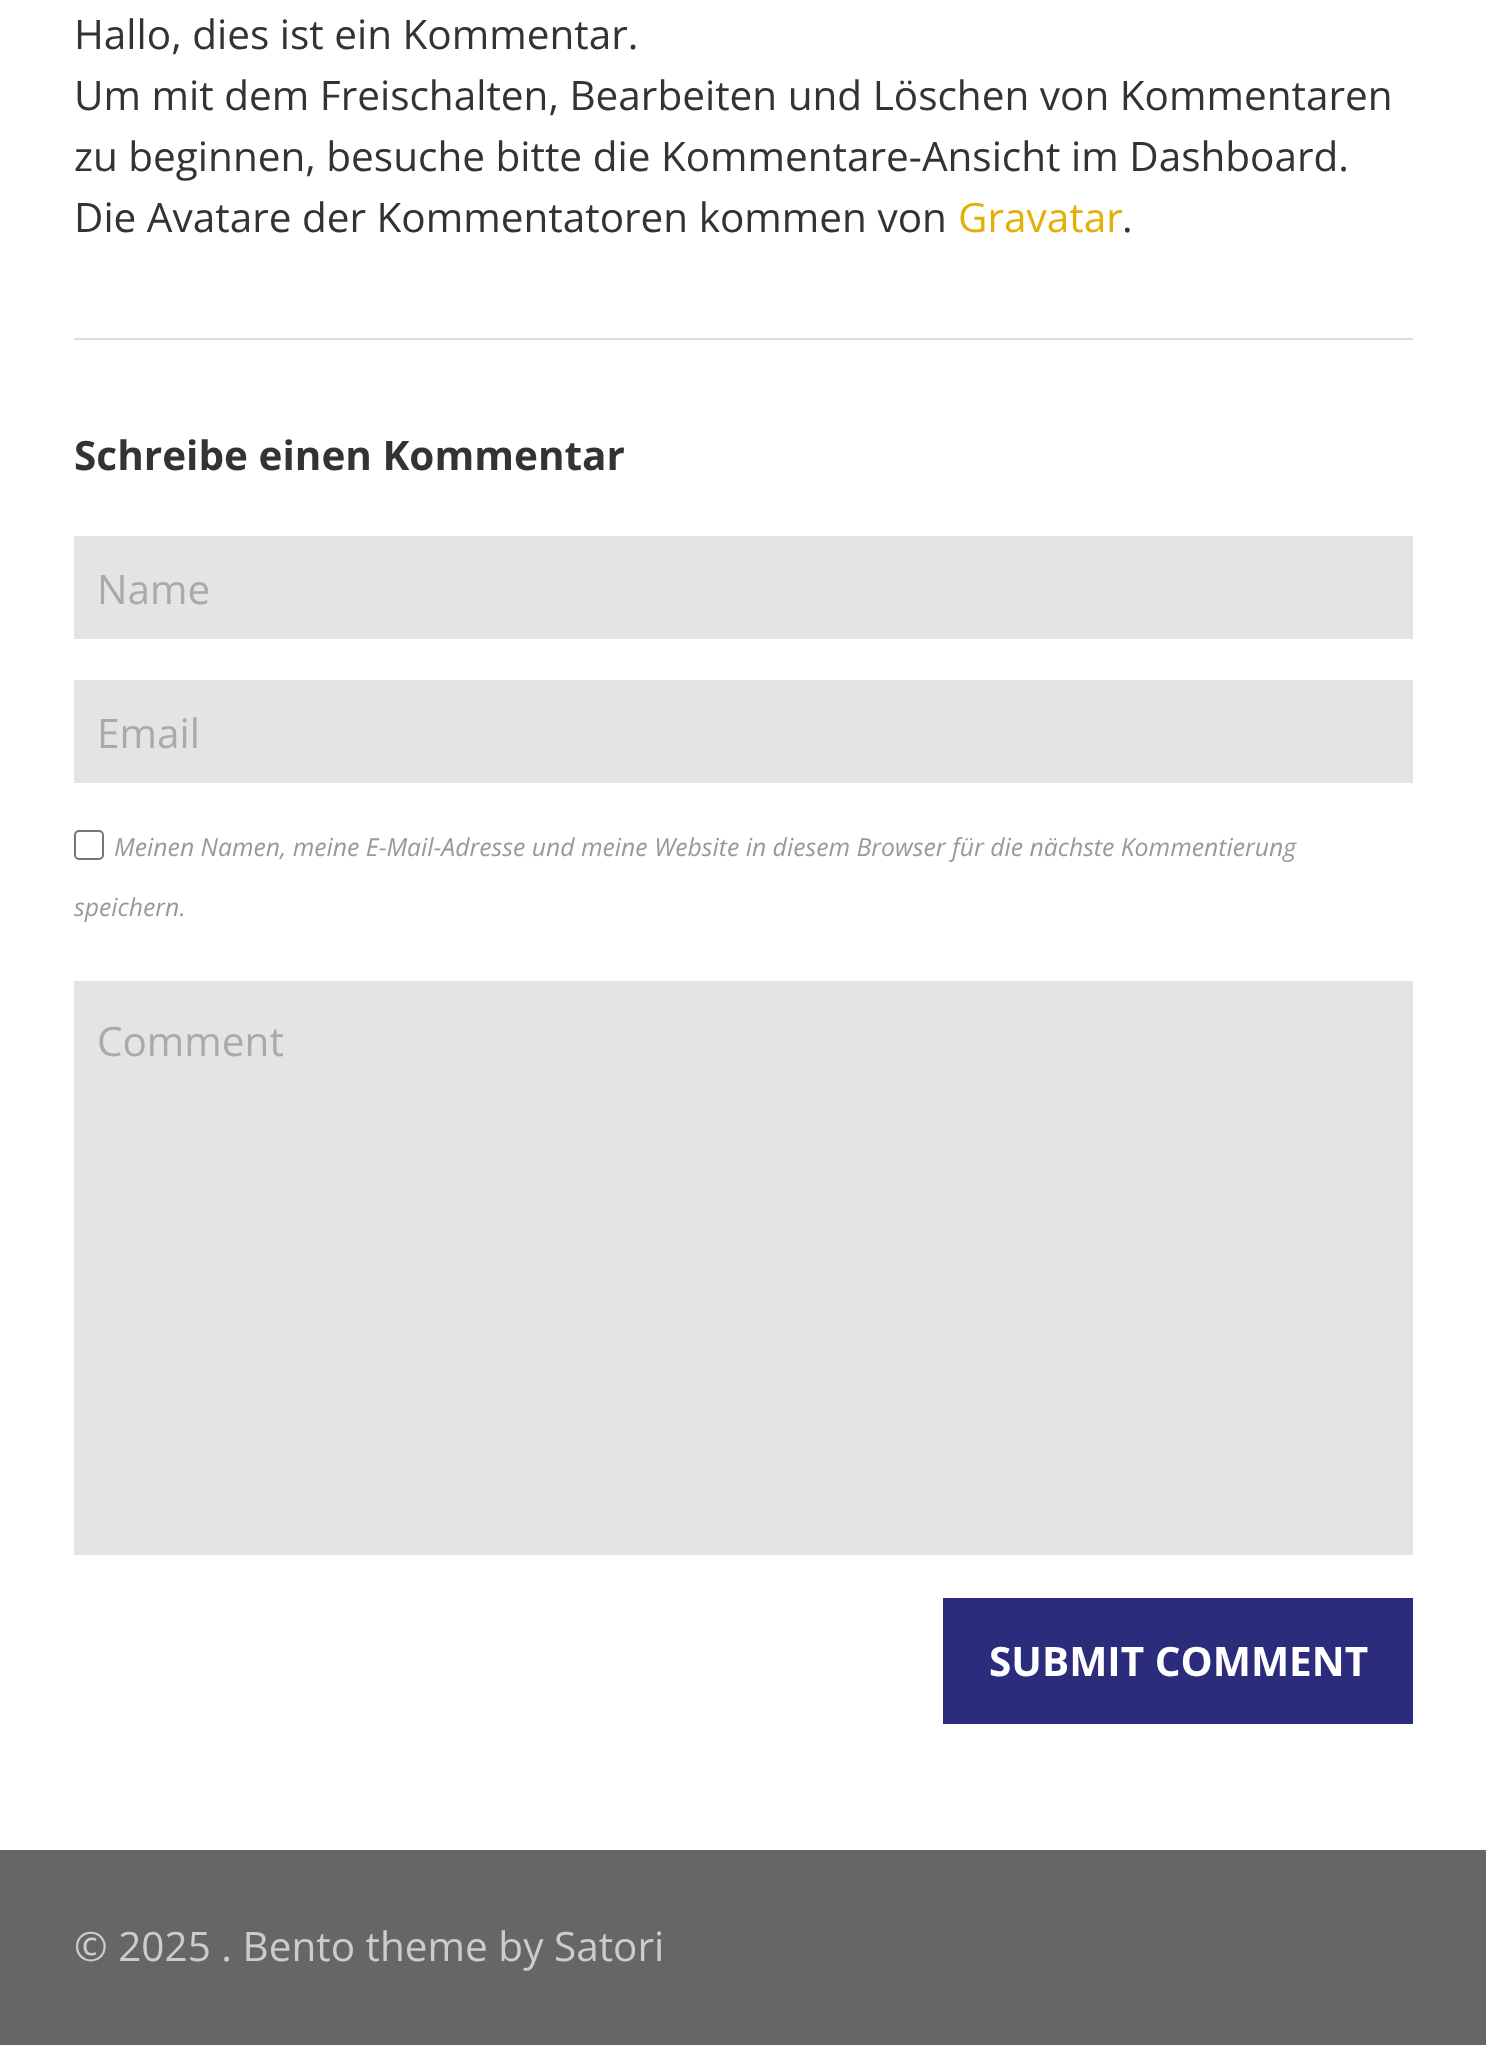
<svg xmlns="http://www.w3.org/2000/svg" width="1486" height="2045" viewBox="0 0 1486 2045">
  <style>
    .t1 { font: 40.5px Open Sans; fill: #333; }
    .t2 { font: 40.5px Open Sans; fill: #e2b007; }
    .t3 { font: bold 40.5px Open Sans; fill: #333; }
    .t4 { font: 40.5px Open Sans; fill: #aaa; }
    .t5 { font: italic 24.75px Open Sans; fill: #999; }
    .t6 { font: bold 40.5px Open Sans; fill: #fff; }
    .t7 { font: 40.5px Open Sans; fill: #ccc; }
  </style>
  <rect width="100%" height="100%" fill="#fff"/>
  <text x="74" y="49" class="t1">Hallo, dies ist ein Kommentar.</text>
  <text x="74" y="110" class="t1">Um mit dem Freischalten, Bearbeiten und Löschen von Kommentaren</text>
  <text x="74" y="171" class="t1">zu beginnen, besuche bitte die Kommentare-Ansicht im Dashboard.</text>
  <text x="74" y="232" class="t1">Die Avatare der Kommentatoren kommen von</text>
  <text x="958" y="232" class="t2">Gravatar</text>
  <text x="1122" y="232" class="t1">.</text>
  <rect x="74" y="338" width="1339" height="2" fill="#ddd"/>
  <text x="74" y="470" class="t3">Schreibe einen Kommentar</text>
  <rect x="74" y="536" width="1339" height="103" fill="#e4e4e4"/>
  <text x="97" y="604" class="t4">Name</text>
  <rect x="74" y="680" width="1339" height="103" fill="#e4e4e4"/>
  <text x="97" y="748" class="t4">Email</text>
  <rect x="75" y="831" width="28" height="28" rx="4" fill="none" stroke="#767676" stroke-width="2"/>
  <text x="114" y="856" class="t5">Meinen Namen, meine E-Mail-Adresse und meine Website in diesem Browser für die nächste Kommentierung</text>
  <text x="74" y="916" class="t5">speichern.</text>
  <rect x="74" y="981" width="1339" height="574" fill="#e4e4e4"/>
  <text x="97" y="1056" class="t4">Comment</text>
  <rect x="943" y="1598" width="470" height="126" fill="#2b2c7c"/>
  <text x="989" y="1676" class="t6">SUBMIT COMMENT</text>
  <rect x="0" y="1850" width="1486" height="195" fill="#666"/>
  <text x="74" y="1961" class="t7">© 2025 . Bento theme by Satori</text>
</svg>
